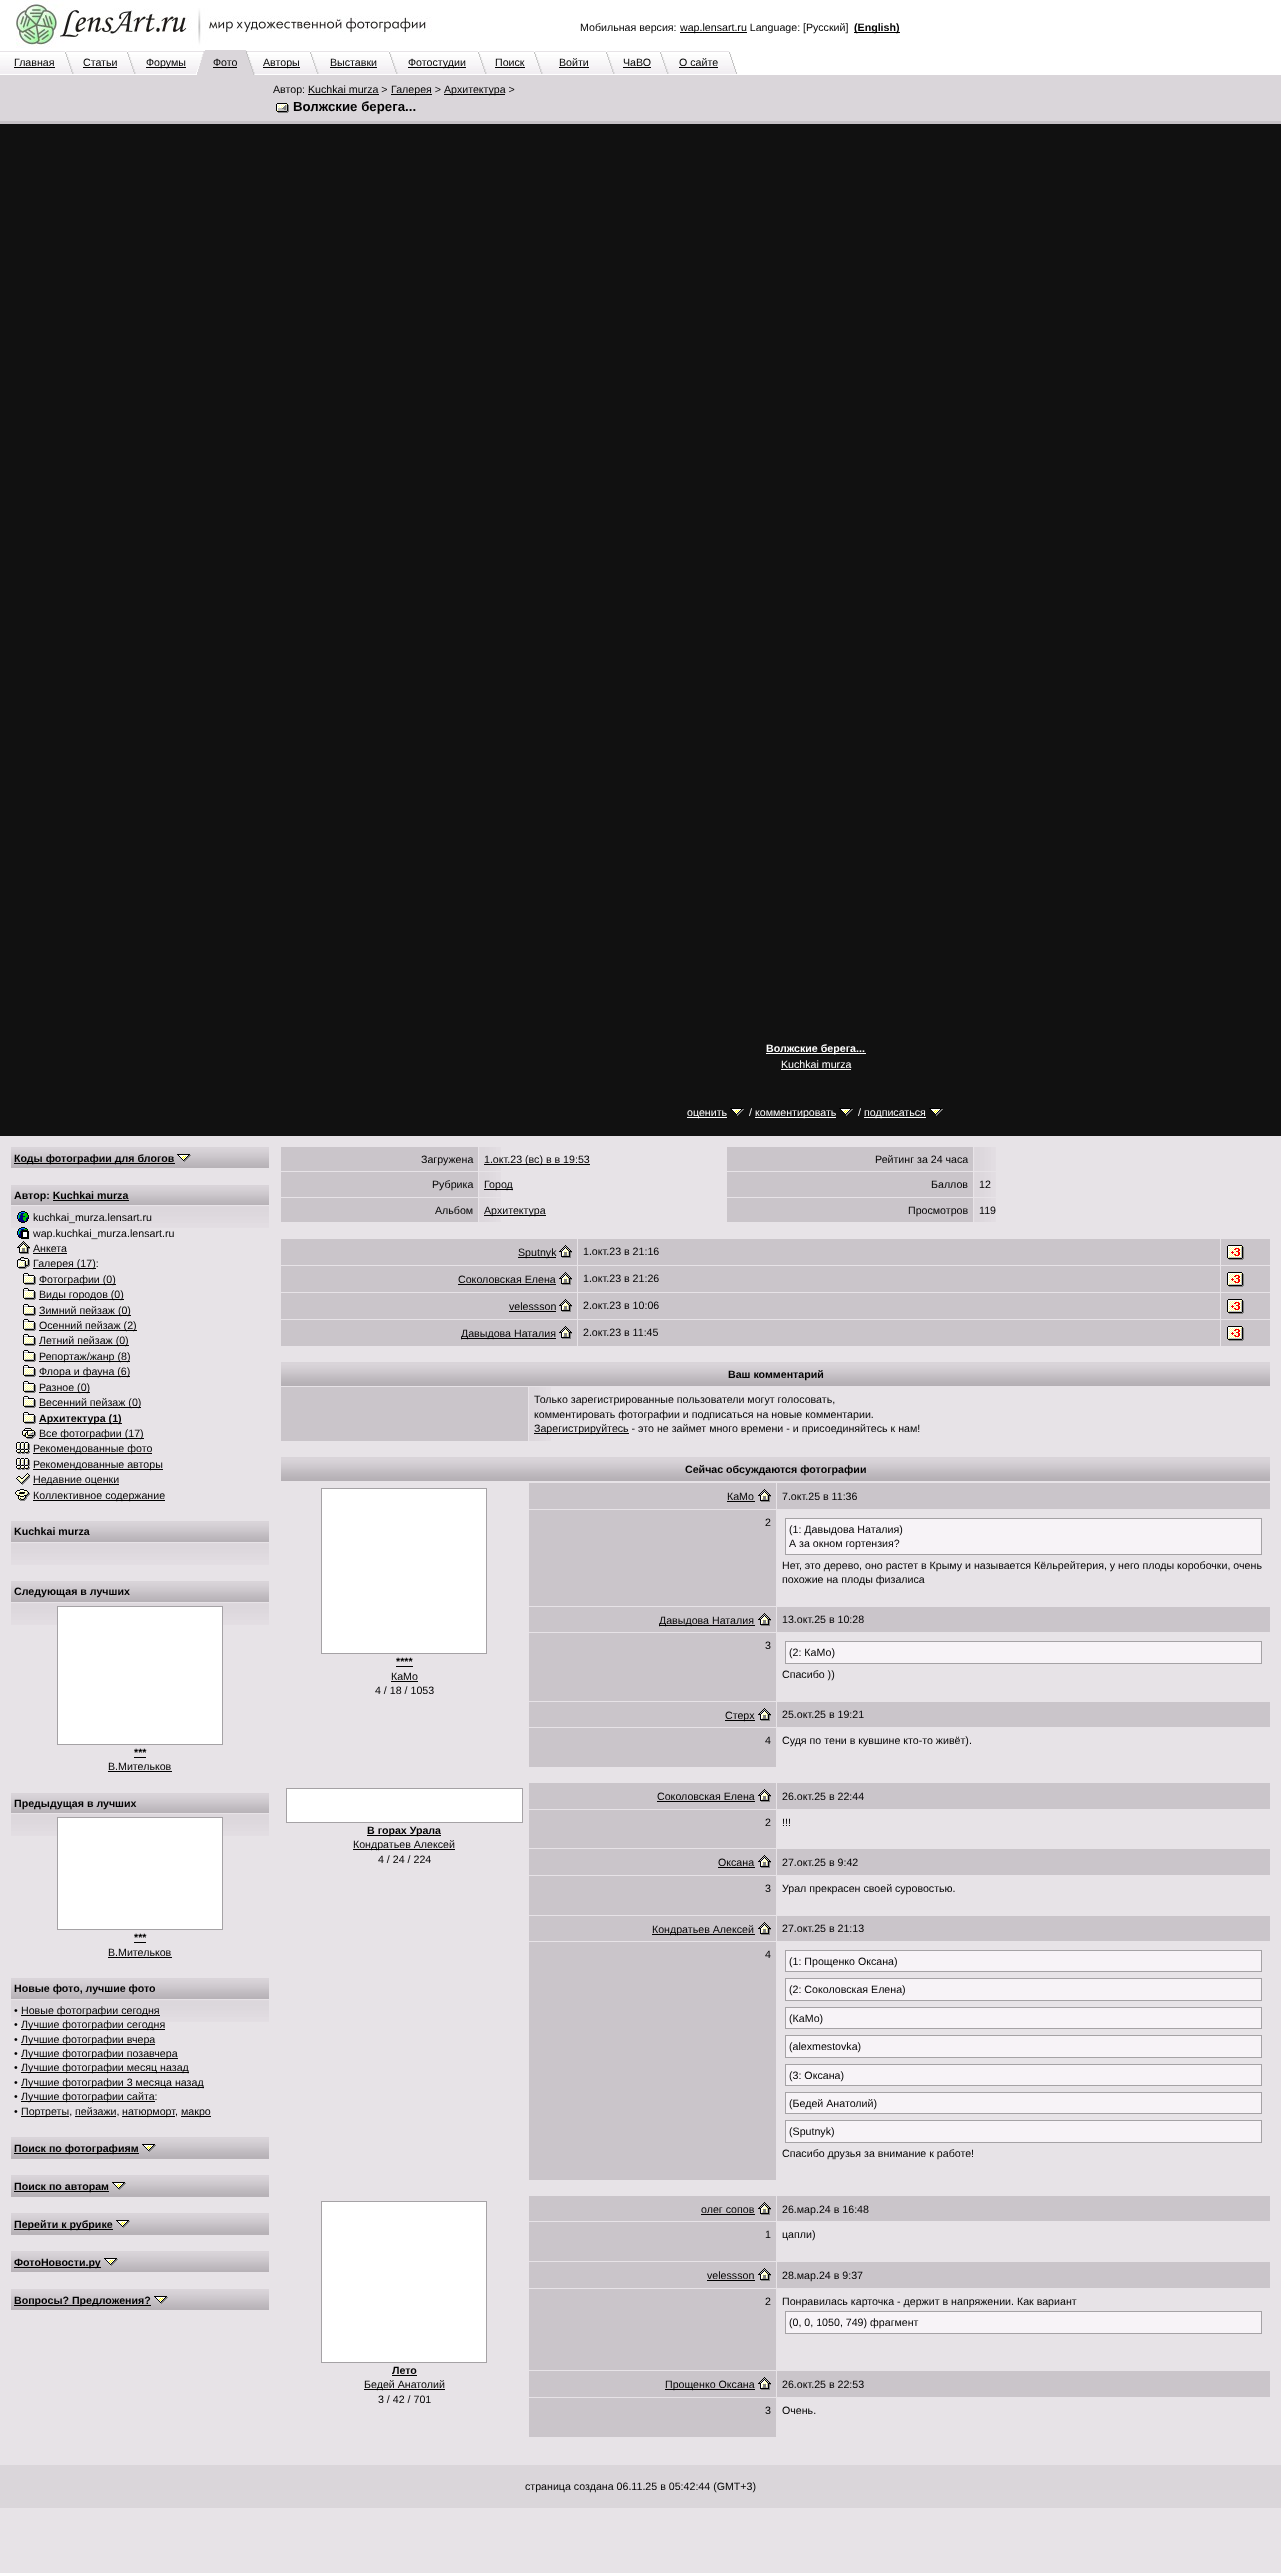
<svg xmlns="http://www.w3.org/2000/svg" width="1281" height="2573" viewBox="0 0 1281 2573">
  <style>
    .t1 { font: 10.65px Liberation Sans; fill: #000; }
    .t2 { font: bold 10.65px Liberation Sans; fill: #000; }
    .t3 { font: bold 13.25px Liberation Sans; fill: #000; }
    .t4 { font: bold 10.65px Liberation Sans; fill: #fff; }
    .t5 { font: 10.65px Liberation Sans; fill: #fff; }
  </style>
  <rect width="100%" height="100%" fill="#e7e3e7"/>
  <rect x="0" y="0" width="1281" height="50" fill="#fff"/>
  <image x="16" y="0" width="416" height="48" href="images/1.png"/>
  <text x="580" y="31" class="t1">Мобильная версия:</text>
  <rect x="680" y="32" width="67" height="1" fill="#000"/>
  <text x="680" y="31" class="t1">wap.lensart.ru Language: [Русский]</text>
  <rect x="854" y="32" width="46" height="1" fill="#000"/>
  <text x="854" y="31" class="t2">(English)</text>
  <image x="0" y="50" width="5" height="25" href="images/2.png"/>
  <image x="5" y="50" width="59" height="25" href="images/3.png"/>
  <text x="14" y="66" class="t1">Главная</text>
  <rect x="14" y="67" width="41" height="1" fill="#000"/>
  <image x="64" y="50" width="10" height="25" href="images/4.png"/>
  <image x="74" y="50" width="52" height="25" href="images/5.png"/>
  <text x="83" y="66" class="t1">Статьи</text>
  <rect x="83" y="67" width="34" height="1" fill="#000"/>
  <image x="126" y="50" width="10" height="25" href="images/4.png"/>
  <image x="136" y="50" width="60" height="25" href="images/6.png"/>
  <rect x="146" y="67" width="40" height="1" fill="#000"/>
  <text x="146" y="66" class="t1">Форумы</text>
  <image x="196" y="50" width="9" height="25" href="images/7.png"/>
  <rect x="205" y="50" width="41" height="25" fill="#dad6da"/>
  <text x="213" y="66" class="t1">Фото</text>
  <rect x="213" y="67" width="24" height="1" fill="#000"/>
  <image x="246" y="50" width="9" height="25" href="images/8.png"/>
  <image x="255" y="50" width="54" height="25" href="images/9.png"/>
  <rect x="263" y="67" width="37" height="1" fill="#000"/>
  <text x="263" y="66" class="t1">Авторы</text>
  <image x="309" y="50" width="10" height="25" href="images/4.png"/>
  <image x="319" y="50" width="69" height="25" href="images/10.png"/>
  <text x="330" y="66" class="t1">Выставки</text>
  <rect x="330" y="67" width="47" height="1" fill="#000"/>
  <image x="388" y="50" width="10" height="25" href="images/4.png"/>
  <image x="398" y="50" width="79" height="25" href="images/11.png"/>
  <rect x="408" y="67" width="58" height="1" fill="#000"/>
  <text x="408" y="66" class="t1">Фотостудии</text>
  <image x="477" y="50" width="10" height="25" href="images/4.png"/>
  <image x="487" y="50" width="46" height="25" href="images/12.png"/>
  <text x="495" y="66" class="t1">Поиск</text>
  <rect x="495" y="67" width="30" height="1" fill="#000"/>
  <image x="533" y="50" width="10" height="25" href="images/4.png"/>
  <image x="543" y="50" width="62" height="25" href="images/13.png"/>
  <text x="559" y="66" class="t1">Войти</text>
  <rect x="559" y="67" width="30" height="1" fill="#000"/>
  <image x="605" y="50" width="10" height="25" href="images/4.png"/>
  <image x="615" y="50" width="44" height="25" href="images/14.png"/>
  <text x="623" y="66" class="t1">ЧаВО</text>
  <rect x="623" y="67" width="28" height="1" fill="#000"/>
  <image x="659" y="50" width="10" height="25" href="images/4.png"/>
  <image x="669" y="50" width="59" height="25" href="images/3.png"/>
  <text x="679" y="66" class="t1">О сайте</text>
  <rect x="679" y="67" width="39" height="1" fill="#000"/>
  <image x="728" y="50" width="10" height="25" href="images/15.png"/>
  <rect x="738" y="50" width="543" height="25" fill="#fff"/>
  <rect x="0" y="75" width="1281" height="46" fill="#dad6da"/>
  <text x="273" y="93" class="t1">Автор: Kuchkai murza &gt;</text>
  <rect x="391" y="94" width="41" height="1" fill="#000"/>
  <text x="391" y="93" class="t1">Галерея &gt;</text>
  <rect x="444" y="94" width="61" height="1" fill="#000"/>
  <text x="444" y="93" class="t1">Архитектура &gt;</text>
  <rect x="308" y="94" width="71" height="1" fill="#000"/>
  <image x="276" y="103" width="13" height="10" href="images/16.png"/>
  <text x="293" y="111" class="t3">Волжские берега...</text>
  <rect x="0" y="121" width="1281" height="3" fill="#c7c2c7"/>
  <rect x="0" y="124" width="1281" height="1012" fill="#111"/>
  <rect x="766" y="1053" width="100" height="1" fill="#fff"/>
  <text x="766" y="1052" class="t4">Волжские берега...</text>
  <text x="781" y="1068" class="t5">Kuchkai murza</text>
  <rect x="781" y="1069" width="70" height="1" fill="#fff"/>
  <rect x="687" y="1117" width="40" height="1" fill="#fff"/>
  <text x="687" y="1116" class="t5">оценить</text>
  <image x="730" y="1108" width="14" height="8" href="images/17.png"/>
  <text x="749" y="1116" class="t5">/</text>
  <rect x="755" y="1117" width="81" height="1" fill="#fff"/>
  <text x="755" y="1116" class="t5">комментировать</text>
  <image x="839" y="1108" width="14" height="8" href="images/17.png"/>
  <text x="858" y="1116" class="t5">/</text>
  <rect x="864" y="1117" width="62" height="1" fill="#fff"/>
  <text x="864" y="1116" class="t5">подписаться</text>
  <image x="929" y="1108" width="14" height="8" href="images/17.png"/>
  <image x="11" y="1147" width="258" height="21" href="images/18.png"/>
  <rect x="14" y="1163" width="161" height="1" fill="#000"/>
  <text x="14" y="1162" class="t2">Коды фотографии для блогов</text>
  <image x="177" y="1154" width="14" height="8" href="images/19.png"/>
  <image x="11" y="1185" width="258" height="20" href="images/20.png"/>
  <text x="14" y="1199" class="t2">Автор: Kuchkai murza</text>
  <rect x="53" y="1200" width="76" height="1" fill="#000"/>
  <image x="11" y="1206" width="258" height="22" href="images/21.png"/>
  <image x="17" y="1211" width="12" height="12" href="images/22.png"/>
  <text x="33" y="1221" class="t1">kuchkai_murza.lensart.ru</text>
  <image x="17" y="1227" width="12" height="12" href="images/23.png"/>
  <text x="33" y="1237" class="t1">wap.kuchkai_murza.lensart.ru</text>
  <image x="17" y="1241" width="13" height="13" href="images/24.png"/>
  <text x="33" y="1252" class="t1">Анкета</text>
  <rect x="33" y="1253" width="34" height="1" fill="#000"/>
  <image x="17" y="1257" width="13" height="12" href="images/25.png"/>
  <rect x="33" y="1268" width="63" height="1" fill="#000"/>
  <text x="33" y="1267" class="t1">Галерея (17):</text>
  <image x="23" y="1273" width="13" height="12" href="images/26.png"/>
  <rect x="39" y="1284" width="77" height="1" fill="#000"/>
  <text x="39" y="1283" class="t1">Фотографии (0)</text>
  <image x="23" y="1288" width="13" height="12" href="images/26.png"/>
  <rect x="39" y="1299" width="85" height="1" fill="#000"/>
  <text x="39" y="1298" class="t1">Виды городов (0)</text>
  <image x="23" y="1304" width="13" height="12" href="images/26.png"/>
  <rect x="39" y="1315" width="92" height="1" fill="#000"/>
  <text x="39" y="1314" class="t1">Зимний пейзаж (0)</text>
  <image x="23" y="1319" width="13" height="12" href="images/26.png"/>
  <rect x="39" y="1330" width="98" height="1" fill="#000"/>
  <text x="39" y="1329" class="t1">Осенний пейзаж (2)</text>
  <image x="23" y="1334" width="13" height="12" href="images/26.png"/>
  <rect x="39" y="1345" width="90" height="1" fill="#000"/>
  <text x="39" y="1344" class="t1">Летний пейзаж (0)</text>
  <image x="23" y="1350" width="13" height="12" href="images/26.png"/>
  <rect x="39" y="1361" width="91" height="1" fill="#000"/>
  <text x="39" y="1360" class="t1">Репортаж/жанр (8)</text>
  <image x="23" y="1365" width="13" height="12" href="images/26.png"/>
  <rect x="39" y="1376" width="91" height="1" fill="#000"/>
  <text x="39" y="1375" class="t1">Флора и фауна (6)</text>
  <image x="23" y="1381" width="13" height="12" href="images/26.png"/>
  <rect x="39" y="1392" width="51" height="1" fill="#000"/>
  <text x="39" y="1391" class="t1">Разное (0)</text>
  <image x="23" y="1396" width="13" height="12" href="images/26.png"/>
  <rect x="39" y="1407" width="102" height="1" fill="#000"/>
  <text x="39" y="1406" class="t1">Весенний пейзаж (0)</text>
  <image x="23" y="1412" width="13" height="12" href="images/26.png"/>
  <rect x="39" y="1423" width="83" height="1" fill="#000"/>
  <text x="39" y="1422" class="t2">Архитектура (1)</text>
  <image x="22" y="1428" width="14" height="11" href="images/27.png"/>
  <rect x="39" y="1438" width="105" height="1" fill="#000"/>
  <text x="39" y="1437" class="t1">Все фотографии (17)</text>
  <image x="16" y="1442" width="14" height="12" href="images/28.png"/>
  <rect x="33" y="1453" width="119" height="1" fill="#000"/>
  <text x="33" y="1452" class="t1">Рекомендованные фото</text>
  <image x="16" y="1458" width="14" height="12" href="images/28.png"/>
  <rect x="33" y="1469" width="130" height="1" fill="#000"/>
  <text x="33" y="1468" class="t1">Рекомендованные авторы</text>
  <image x="16" y="1473" width="14" height="12" href="images/29.png"/>
  <rect x="33" y="1484" width="86" height="1" fill="#000"/>
  <text x="33" y="1483" class="t1">Недавние оценки</text>
  <image x="15" y="1489" width="15" height="12" href="images/30.png"/>
  <rect x="33" y="1500" width="132" height="1" fill="#000"/>
  <text x="33" y="1499" class="t1">Коллективное содержание</text>
  <image x="11" y="1521" width="258" height="21" href="images/18.png"/>
  <text x="14" y="1535" class="t2">Kuchkai murza</text>
  <image x="11" y="1543" width="258" height="22" href="images/21.png"/>
  <image x="11" y="1581" width="258" height="21" href="images/18.png"/>
  <text x="14" y="1595" class="t2">Следующая в лучших</text>
  <image x="11" y="1603" width="258" height="22" href="images/21.png"/>
  <rect x="57.5" y="1606.5" width="165" height="138" fill="#fff" stroke="#a5a2a5"/>
  <text x="134" y="1756" class="t2">***</text>
  <rect x="134" y="1757" width="12" height="1" fill="#000"/>
  <text x="108" y="1770" class="t1">В.Мительков</text>
  <rect x="108" y="1771" width="64" height="1" fill="#000"/>
  <image x="11" y="1793" width="258" height="20" href="images/20.png"/>
  <text x="14" y="1807" class="t2">Предыдущая в лучших</text>
  <image x="11" y="1814" width="258" height="22" href="images/21.png"/>
  <rect x="57.5" y="1817.5" width="165" height="112" fill="#fff" stroke="#a5a2a5"/>
  <text x="134" y="1941" class="t2">***</text>
  <rect x="134" y="1942" width="12" height="1" fill="#000"/>
  <text x="108" y="1956" class="t1">В.Мительков</text>
  <rect x="108" y="1957" width="64" height="1" fill="#000"/>
  <image x="11" y="1978" width="258" height="21" href="images/18.png"/>
  <text x="14" y="1992" class="t2">Новые фото, лучшие фото</text>
  <image x="11" y="2000" width="258" height="22" href="images/21.png"/>
  <text x="14" y="2014" class="t1">•</text>
  <rect x="21" y="2015" width="139" height="1" fill="#000"/>
  <text x="21" y="2014" class="t1">Новые фотографии сегодня</text>
  <text x="14" y="2028" class="t1">•</text>
  <rect x="21" y="2029" width="144" height="1" fill="#000"/>
  <text x="21" y="2028" class="t1">Лучшие фотографии сегодня</text>
  <text x="14" y="2043" class="t1">•</text>
  <rect x="21" y="2044" width="134" height="1" fill="#000"/>
  <text x="21" y="2043" class="t1">Лучшие фотографии вчера</text>
  <text x="14" y="2057" class="t1">•</text>
  <rect x="21" y="2058" width="157" height="1" fill="#000"/>
  <text x="21" y="2057" class="t1">Лучшие фотографии позавчера</text>
  <text x="14" y="2071" class="t1">•</text>
  <rect x="21" y="2072" width="168" height="1" fill="#000"/>
  <text x="21" y="2071" class="t1">Лучшие фотографии месяц назад</text>
  <text x="14" y="2086" class="t1">•</text>
  <rect x="21" y="2087" width="183" height="1" fill="#000"/>
  <text x="21" y="2086" class="t1">Лучшие фотографии 3 месяца назад</text>
  <text x="14" y="2100" class="t1">•</text>
  <rect x="21" y="2101" width="134" height="1" fill="#000"/>
  <text x="21" y="2100" class="t1">Лучшие фотографии сайта:</text>
  <text x="14" y="2115" class="t1">•</text>
  <rect x="21" y="2116" width="48" height="1" fill="#000"/>
  <text x="21" y="2115" class="t1">Портреты, пейзажи,</text>
  <rect x="122" y="2116" width="53" height="1" fill="#000"/>
  <text x="122" y="2115" class="t1">натюрморт</text>
  <rect x="181" y="2116" width="30" height="1" fill="#000"/>
  <text x="181" y="2115" class="t1">макро</text>
  <rect x="75" y="2116" width="41" height="1" fill="#000"/>
  <text x="175" y="2115" class="t1">,</text>
  <image x="11" y="2137" width="258" height="22" href="images/31.png"/>
  <rect x="14" y="2153" width="125" height="1" fill="#000"/>
  <text x="14" y="2152" class="t2">Поиск по фотографиям</text>
  <image x="142" y="2144" width="14" height="8" href="images/19.png"/>
  <image x="11" y="2175" width="258" height="22" href="images/31.png"/>
  <rect x="14" y="2191" width="95" height="1" fill="#000"/>
  <text x="14" y="2190" class="t2">Поиск по авторам</text>
  <image x="112" y="2182" width="14" height="8" href="images/19.png"/>
  <image x="11" y="2213" width="258" height="22" href="images/31.png"/>
  <rect x="14" y="2229" width="99" height="1" fill="#000"/>
  <text x="14" y="2228" class="t2">Перейти к рубрике</text>
  <image x="116" y="2220" width="14" height="8" href="images/19.png"/>
  <image x="11" y="2251" width="258" height="21" href="images/18.png"/>
  <rect x="14" y="2267" width="87" height="1" fill="#000"/>
  <text x="14" y="2266" class="t2">ФотоНовости.ру</text>
  <image x="104" y="2258" width="14" height="8" href="images/19.png"/>
  <image x="11" y="2289" width="258" height="21" href="images/18.png"/>
  <rect x="14" y="2305" width="137" height="1" fill="#000"/>
  <text x="14" y="2304" class="t2">Вопросы? Предложения?</text>
  <image x="154" y="2296" width="14" height="8" href="images/19.png"/>
  <rect x="281" y="1147" width="197" height="24" fill="#cac5ca"/>
  <text x="421" y="1163" class="t1">Загружена</text>
  <image x="479" y="1147" width="22" height="24" href="images/32.png"/>
  <rect x="484" y="1164" width="106" height="1" fill="#000"/>
  <text x="484" y="1163" class="t1">1.окт.23 (вс) в в 19:53</text>
  <rect x="727" y="1147" width="246" height="24" fill="#cac5ca"/>
  <text x="875" y="1163" class="t1">Рейтинг за 24 часа</text>
  <image x="974" y="1147" width="22" height="24" href="images/32.png"/>
  <rect x="281" y="1172" width="197" height="25" fill="#cac5ca"/>
  <text x="432" y="1188" class="t1">Рубрика</text>
  <image x="479" y="1172" width="22" height="25" href="images/33.png"/>
  <rect x="484" y="1189" width="29" height="1" fill="#000"/>
  <text x="484" y="1188" class="t1">Город</text>
  <rect x="727" y="1172" width="246" height="25" fill="#cac5ca"/>
  <text x="931" y="1188" class="t1">Баллов</text>
  <image x="974" y="1172" width="22" height="25" href="images/33.png"/>
  <text x="979" y="1188" class="t1">12</text>
  <rect x="281" y="1198" width="197" height="24" fill="#cac5ca"/>
  <text x="435" y="1214" class="t1">Альбом</text>
  <image x="479" y="1198" width="22" height="24" href="images/32.png"/>
  <rect x="484" y="1215" width="62" height="1" fill="#000"/>
  <text x="484" y="1214" class="t1">Архитектура</text>
  <rect x="727" y="1198" width="246" height="24" fill="#cac5ca"/>
  <text x="908" y="1214" class="t1">Просмотров</text>
  <image x="974" y="1198" width="22" height="24" href="images/32.png"/>
  <text x="979" y="1214" class="t1">119</text>
  <rect x="281" y="1239" width="296" height="26" fill="#cac5ca"/>
  <rect x="518" y="1257" width="38" height="1" fill="#000"/>
  <text x="518" y="1256" class="t1">Sputnyk</text>
  <image x="559" y="1245" width="13" height="13" href="images/34.png"/>
  <rect x="578" y="1239" width="642" height="26" fill="#cac5ca"/>
  <text x="583" y="1255" class="t1">1.окт.23 в 21:16</text>
  <rect x="1221" y="1239" width="49" height="26" fill="#cac5ca"/>
  <image x="1227" y="1245" width="17" height="15" href="images/35.png"/>
  <rect x="281" y="1266" width="296" height="26" fill="#cac5ca"/>
  <text x="458" y="1283" class="t1">Соколовская Елена</text>
  <rect x="458" y="1284" width="98" height="1" fill="#000"/>
  <image x="559" y="1272" width="13" height="13" href="images/34.png"/>
  <rect x="578" y="1266" width="642" height="26" fill="#cac5ca"/>
  <text x="583" y="1282" class="t1">1.окт.23 в 21:26</text>
  <rect x="1221" y="1266" width="49" height="26" fill="#cac5ca"/>
  <image x="1227" y="1272" width="17" height="15" href="images/35.png"/>
  <rect x="281" y="1293" width="296" height="26" fill="#cac5ca"/>
  <text x="509" y="1310" class="t1">velessson</text>
  <rect x="509" y="1311" width="47" height="1" fill="#000"/>
  <image x="559" y="1299" width="13" height="13" href="images/34.png"/>
  <rect x="578" y="1293" width="642" height="26" fill="#cac5ca"/>
  <text x="583" y="1309" class="t1">2.окт.23 в 10:06</text>
  <rect x="1221" y="1293" width="49" height="26" fill="#cac5ca"/>
  <image x="1227" y="1299" width="17" height="15" href="images/35.png"/>
  <rect x="281" y="1320" width="296" height="26" fill="#cac5ca"/>
  <rect x="461" y="1338" width="95" height="1" fill="#000"/>
  <text x="461" y="1337" class="t1">Давыдова Наталия</text>
  <image x="559" y="1326" width="13" height="13" href="images/34.png"/>
  <rect x="578" y="1320" width="642" height="26" fill="#cac5ca"/>
  <text x="583" y="1336" class="t1">2.окт.23 в 11:45</text>
  <rect x="1221" y="1320" width="49" height="26" fill="#cac5ca"/>
  <image x="1227" y="1326" width="17" height="15" href="images/35.png"/>
  <image x="281" y="1362" width="989" height="24" href="images/36.png"/>
  <text x="728" y="1378" class="t2">Ваш комментарий</text>
  <rect x="281" y="1387" width="247" height="54" fill="#cac5ca"/>
  <image x="529" y="1387" width="22" height="54" href="images/37.png"/>
  <text x="534" y="1403" class="t1">Только зарегистрированные пользователи могут голосовать,</text>
  <text x="534" y="1418" class="t1">комментировать фотографии и подписаться на новые комментарии.</text>
  <rect x="534" y="1433" width="95" height="1" fill="#000"/>
  <text x="534" y="1432" class="t1">Зарегистрируйтесь - это не займет много времени - и присоединяйтесь к нам!</text>
  <image x="281" y="1457" width="989" height="24" href="images/36.png"/>
  <text x="685" y="1473" class="t2">Сейчас обсуждаются фотографии</text>
  <rect x="529" y="1483" width="247" height="26" fill="#cac5ca"/>
  <text x="727" y="1500" class="t1">КаМо</text>
  <rect x="727" y="1501" width="28" height="1" fill="#000"/>
  <image x="758" y="1489" width="13" height="13" href="images/34.png"/>
  <rect x="777" y="1483" width="493" height="26" fill="#cac5ca"/>
  <text x="782" y="1500" class="t1">7.окт.25 в 11:36</text>
  <rect x="321.5" y="1488.5" width="165" height="165" fill="#fff" stroke="#a5a2a5"/>
  <text x="396" y="1665" class="t2">****</text>
  <rect x="396" y="1666" width="17" height="1" fill="#000"/>
  <text x="391" y="1680" class="t1">КаМо</text>
  <rect x="391" y="1681" width="27" height="1" fill="#000"/>
  <text x="375" y="1694" class="t1">4 / 18 / 1053</text>
  <rect x="529" y="1510" width="247" height="96" fill="#cac5ca"/>
  <text x="765" y="1526" class="t1">2</text>
  <rect x="785.5" y="1518.5" width="476" height="36" fill="#f7f3f7" stroke="#a5a2a5"/>
  <text x="789" y="1533" class="t1">(1: Давыдова Наталия)</text>
  <text x="789" y="1547" class="t1">А за окном гортензия?</text>
  <text x="782" y="1569" class="t1">Нет, это дерево, оно растет в Крыму и называется Кёльрейтерия, у него плоды коробочки, очень</text>
  <text x="782" y="1583" class="t1">похожие на плоды физалиса</text>
  <rect x="529" y="1607" width="247" height="25" fill="#cac5ca"/>
  <rect x="659" y="1625" width="96" height="1" fill="#000"/>
  <text x="659" y="1624" class="t1">Давыдова Наталия</text>
  <image x="758" y="1613" width="13" height="13" href="images/34.png"/>
  <rect x="777" y="1607" width="493" height="25" fill="#cac5ca"/>
  <text x="782" y="1623" class="t1">13.окт.25 в 10:28</text>
  <rect x="529" y="1633" width="247" height="68" fill="#cac5ca"/>
  <text x="765" y="1649" class="t1">3</text>
  <rect x="785.5" y="1641.5" width="476" height="22" fill="#f7f3f7" stroke="#a5a2a5"/>
  <text x="789" y="1656" class="t1">(2: КаМо)</text>
  <text x="782" y="1678" class="t1">Спасибо ))</text>
  <rect x="529" y="1702" width="247" height="25" fill="#cac5ca"/>
  <rect x="725" y="1720" width="30" height="1" fill="#000"/>
  <text x="725" y="1719" class="t1">Стерх</text>
  <image x="758" y="1708" width="13" height="13" href="images/34.png"/>
  <rect x="777" y="1702" width="493" height="25" fill="#cac5ca"/>
  <text x="782" y="1718" class="t1">25.окт.25 в 19:21</text>
  <rect x="529" y="1728" width="247" height="39" fill="#cac5ca"/>
  <text x="765" y="1744" class="t1">4</text>
  <text x="782" y="1744" class="t1">Судя по тени в кувшине кто-то живёт).</text>
  <rect x="529" y="1783" width="247" height="26" fill="#cac5ca"/>
  <text x="657" y="1800" class="t1">Соколовская Елена</text>
  <rect x="657" y="1801" width="98" height="1" fill="#000"/>
  <image x="758" y="1789" width="13" height="13" href="images/34.png"/>
  <rect x="777" y="1783" width="493" height="26" fill="#cac5ca"/>
  <text x="782" y="1800" class="t1">26.окт.25 в 22:44</text>
  <rect x="286.5" y="1788.5" width="236" height="34" fill="#fff" stroke="#a5a2a5"/>
  <rect x="367" y="1835" width="74" height="1" fill="#000"/>
  <text x="367" y="1834" class="t2">В горах Урала</text>
  <rect x="353" y="1849" width="102" height="1" fill="#000"/>
  <text x="353" y="1848" class="t1">Кондратьев Алексей</text>
  <text x="378" y="1863" class="t1">4 / 24 / 224</text>
  <rect x="529" y="1810" width="247" height="38" fill="#cac5ca"/>
  <text x="765" y="1826" class="t1">2</text>
  <text x="782" y="1826" class="t1">!!!</text>
  <rect x="529" y="1849" width="247" height="26" fill="#cac5ca"/>
  <text x="718" y="1866" class="t1">Оксана</text>
  <rect x="718" y="1867" width="37" height="1" fill="#000"/>
  <image x="758" y="1855" width="13" height="13" href="images/34.png"/>
  <rect x="777" y="1849" width="493" height="26" fill="#cac5ca"/>
  <text x="782" y="1866" class="t1">27.окт.25 в 9:42</text>
  <rect x="529" y="1876" width="247" height="39" fill="#cac5ca"/>
  <text x="765" y="1892" class="t1">3</text>
  <text x="782" y="1892" class="t1">Урал прекрасен своей суровостью.</text>
  <rect x="529" y="1916" width="247" height="25" fill="#cac5ca"/>
  <rect x="652" y="1934" width="103" height="1" fill="#000"/>
  <text x="652" y="1933" class="t1">Кондратьев Алексей</text>
  <image x="758" y="1922" width="13" height="13" href="images/34.png"/>
  <rect x="777" y="1916" width="493" height="25" fill="#cac5ca"/>
  <text x="782" y="1932" class="t1">27.окт.25 в 21:13</text>
  <rect x="529" y="1942" width="247" height="238" fill="#cac5ca"/>
  <text x="765" y="1958" class="t1">4</text>
  <rect x="785.5" y="1950.5" width="476" height="21" fill="#f7f3f7" stroke="#a5a2a5"/>
  <text x="789" y="1965" class="t1">(1: Прощенко Оксана)</text>
  <rect x="785.5" y="1978.5" width="476" height="22" fill="#f7f3f7" stroke="#a5a2a5"/>
  <text x="789" y="1993" class="t1">(2: Соколовская Елена)</text>
  <rect x="785.5" y="2007.5" width="476" height="21" fill="#f7f3f7" stroke="#a5a2a5"/>
  <text x="789" y="2022" class="t1">(КаМо)</text>
  <rect x="785.5" y="2035.5" width="476" height="22" fill="#f7f3f7" stroke="#a5a2a5"/>
  <text x="789" y="2050" class="t1">(alexmestovka)</text>
  <rect x="785.5" y="2064.5" width="476" height="21" fill="#f7f3f7" stroke="#a5a2a5"/>
  <text x="789" y="2079" class="t1">(3: Оксана)</text>
  <rect x="785.5" y="2092.5" width="476" height="21" fill="#f7f3f7" stroke="#a5a2a5"/>
  <text x="789" y="2107" class="t1">(Бедей Анатолий)</text>
  <rect x="785.5" y="2120.5" width="476" height="22" fill="#f7f3f7" stroke="#a5a2a5"/>
  <text x="789" y="2135" class="t1">(Sputnyk)</text>
  <text x="782" y="2157" class="t1">Спасибо друзья за внимание к работе!</text>
  <rect x="529" y="2196" width="247" height="25" fill="#cac5ca"/>
  <text x="701" y="2213" class="t1">олег сопов</text>
  <rect x="701" y="2214" width="54" height="1" fill="#000"/>
  <image x="758" y="2202" width="13" height="13" href="images/34.png"/>
  <rect x="777" y="2196" width="493" height="25" fill="#cac5ca"/>
  <text x="782" y="2213" class="t1">26.мар.24 в 16:48</text>
  <rect x="321.5" y="2201.5" width="165" height="161" fill="#fff" stroke="#a5a2a5"/>
  <text x="392" y="2374" class="t2">Лето</text>
  <rect x="392" y="2375" width="25" height="1" fill="#000"/>
  <rect x="364" y="2389" width="81" height="1" fill="#000"/>
  <text x="364" y="2388" class="t1">Бедей Анатолий</text>
  <text x="378" y="2403" class="t1">3 / 42 / 701</text>
  <rect x="529" y="2222" width="247" height="39" fill="#cac5ca"/>
  <text x="765" y="2238" class="t1">1</text>
  <text x="782" y="2238" class="t1">цапли)</text>
  <rect x="529" y="2262" width="247" height="26" fill="#cac5ca"/>
  <text x="707" y="2279" class="t1">velessson</text>
  <rect x="707" y="2280" width="48" height="1" fill="#000"/>
  <image x="758" y="2268" width="13" height="13" href="images/34.png"/>
  <rect x="777" y="2262" width="493" height="26" fill="#cac5ca"/>
  <text x="782" y="2279" class="t1">28.мар.24 в 9:37</text>
  <rect x="529" y="2289" width="247" height="81" fill="#cac5ca"/>
  <text x="765" y="2305" class="t1">2</text>
  <text x="782" y="2305" class="t1">Понравилась карточка - держит в напряжении. Как вариант</text>
  <rect x="785.5" y="2311.5" width="476" height="22" fill="#f7f3f7" stroke="#a5a2a5"/>
  <text x="789" y="2326" class="t1">(0, 0, 1050, 749) фрагмент</text>
  <rect x="529" y="2371" width="247" height="26" fill="#cac5ca"/>
  <rect x="665" y="2389" width="90" height="1" fill="#000"/>
  <text x="665" y="2388" class="t1">Прощенко Оксана</text>
  <image x="758" y="2377" width="13" height="13" href="images/34.png"/>
  <rect x="777" y="2371" width="493" height="26" fill="#cac5ca"/>
  <text x="782" y="2388" class="t1">26.окт.25 в 22:53</text>
  <rect x="529" y="2398" width="247" height="39" fill="#cac5ca"/>
  <text x="765" y="2414" class="t1">3</text>
  <text x="782" y="2414" class="t1">Очень.</text>
  <rect x="0" y="2465" width="1281" height="43" fill="#dad6da"/>
  <text x="525" y="2490" class="t1">страница создана 06.11.25 в 05:42:44 (GMT+3)</text>
</svg>
